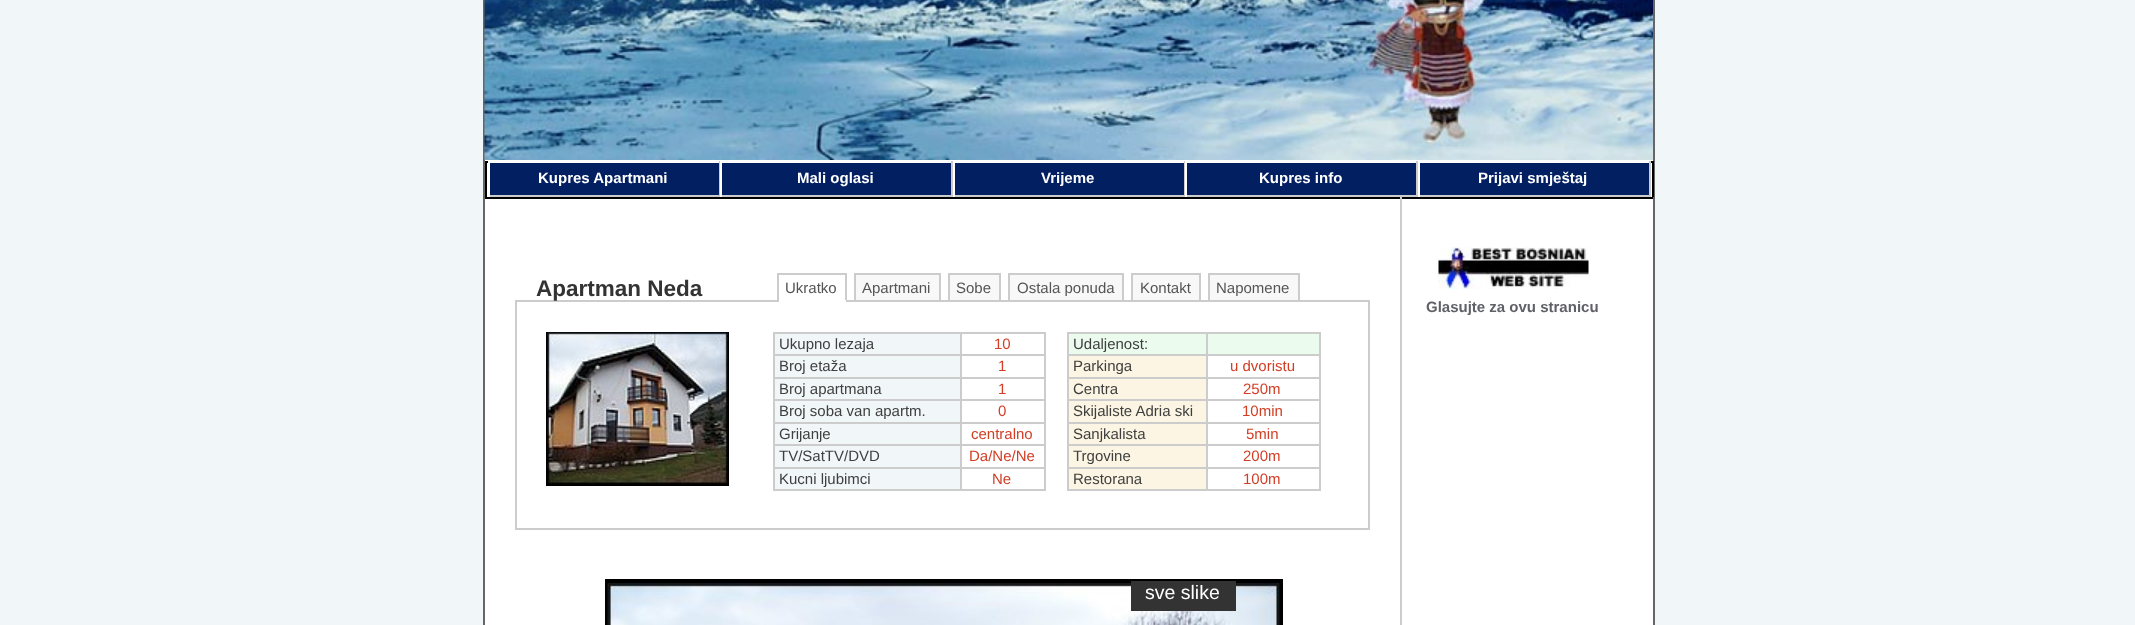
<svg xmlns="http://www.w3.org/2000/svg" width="2135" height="625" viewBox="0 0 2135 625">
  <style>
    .t1 { font: bold 15px Liberation Sans; fill: #fff; }
    .t2 { font: bold 22.5px Liberation Sans; fill: #333; }
    .t3 { font: 15px Liberation Sans; fill: #555; }
    .t4 { font: 15px Liberation Sans; fill: #3f3f3f; }
    .t5 { font: 15px Liberation Sans; fill: #d23d24; }
    .t6 { font: 19.5px Liberation Sans; fill: #fff; }
    .t7 { font: bold 15px Liberation Sans; fill: #606068; }
  </style>
  <rect width="100%" height="100%" fill="#f1f6f9"/>
  <rect x="485" y="163" width="1168" height="462" fill="#fff"/>
  <rect x="484" y="-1" width="1170" height="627" fill="none" stroke="#666" stroke-width="2"/>
  <image x="484" y="0" width="1169" height="160" href="images/1.png"/>
  <rect x="485" y="160" width="1168" height="1" fill="#fff"/>
  <rect x="1652" y="161" width="2" height="36" fill="#000"/>
  <rect x="485" y="161" width="2" height="36" fill="#000"/>
  <rect x="485" y="161" width="1168" height="2" fill="#000"/>
  <rect x="490" y="163" width="229" height="32" fill="#021f61"/>
  <rect x="488" y="161" width="1162" height="2" fill="#fff"/>
  <rect x="719" y="161" width="1" height="36" fill="#ccc"/>
  <rect x="488" y="195" width="232" height="2" fill="#ccc"/>
  <rect x="488" y="195" width="2" height="2" fill="#fff"/>
  <text x="538" y="183" class="t1">Kupres Apartmani</text>
  <rect x="722" y="163" width="229" height="32" fill="#021f61"/>
  <rect x="951" y="161" width="2" height="36" fill="#ccc"/>
  <rect x="720" y="195" width="233" height="2" fill="#ccc"/>
  <rect x="720" y="195" width="2" height="2" fill="#fff"/>
  <text x="797" y="183" class="t1">Mali oglasi</text>
  <rect x="955" y="163" width="229" height="32" fill="#021f61"/>
  <rect x="1184" y="161" width="1" height="36" fill="#ccc"/>
  <rect x="953" y="195" width="232" height="2" fill="#ccc"/>
  <rect x="953" y="195" width="2" height="2" fill="#fff"/>
  <text x="1041" y="183" class="t1">Vrijeme</text>
  <rect x="1187" y="163" width="229" height="32" fill="#021f61"/>
  <rect x="1416" y="161" width="2" height="36" fill="#ccc"/>
  <rect x="1185" y="195" width="233" height="2" fill="#ccc"/>
  <rect x="1185" y="195" width="2" height="2" fill="#fff"/>
  <text x="1259" y="183" class="t1">Kupres info</text>
  <rect x="1420" y="163" width="229" height="32" fill="#021f61"/>
  <rect x="1649" y="161" width="2" height="36" fill="#ccc"/>
  <rect x="1418" y="195" width="232" height="2" fill="#ccc"/>
  <rect x="1418" y="195" width="2" height="2" fill="#fff"/>
  <text x="1478" y="183" class="t1">Prijavi smještaj</text>
  <rect x="485" y="197" width="1168" height="2" fill="#000"/>
  <rect x="515" y="300" width="855" height="2" fill="#ccc"/>
  <text x="536" y="296" class="t2">Apartman Neda</text>
  <text x="785" y="293" class="t3">Ukratko</text>
  <rect x="777" y="273" width="69" height="2" fill="#ccc"/>
  <rect x="845" y="273" width="2" height="29" fill="#ccc"/>
  <rect x="777" y="300" width="69" height="2" fill="#fff"/>
  <rect x="777" y="273" width="2" height="29" fill="#ccc"/>
  <rect x="856" y="275" width="83" height="25" fill="#f8f8f8"/>
  <text x="862" y="293" class="t3">Apartmani</text>
  <rect x="854" y="273" width="87" height="2" fill="#ccc"/>
  <rect x="939" y="273" width="2" height="27" fill="#ccc"/>
  <rect x="854" y="273" width="2" height="27" fill="#ccc"/>
  <rect x="950" y="275" width="49" height="25" fill="#f8f8f8"/>
  <text x="956" y="293" class="t3">Sobe</text>
  <rect x="948" y="273" width="53" height="2" fill="#ccc"/>
  <rect x="999" y="273" width="2" height="27" fill="#ccc"/>
  <rect x="948" y="273" width="2" height="27" fill="#ccc"/>
  <rect x="1010" y="275" width="112" height="25" fill="#f8f8f8"/>
  <text x="1017" y="293" class="t3">Ostala ponuda</text>
  <rect x="1008" y="273" width="116" height="2" fill="#ccc"/>
  <rect x="1122" y="273" width="2" height="27" fill="#ccc"/>
  <rect x="1008" y="273" width="2" height="27" fill="#ccc"/>
  <rect x="1133" y="275" width="66" height="25" fill="#f8f8f8"/>
  <text x="1140" y="293" class="t3">Kontakt</text>
  <rect x="1131" y="273" width="69" height="2" fill="#ccc"/>
  <rect x="1199" y="273" width="2" height="27" fill="#ccc"/>
  <rect x="1131" y="273" width="2" height="27" fill="#ccc"/>
  <rect x="1210" y="275" width="88" height="25" fill="#f8f8f8"/>
  <text x="1216" y="293" class="t3">Napomene</text>
  <rect x="1208" y="273" width="91" height="2" fill="#ccc"/>
  <rect x="1298" y="273" width="2" height="27" fill="#ccc"/>
  <rect x="1208" y="273" width="2" height="27" fill="#ccc"/>
  <rect x="1368" y="302" width="2" height="228" fill="#ccc"/>
  <rect x="515" y="528" width="855" height="2" fill="#ccc"/>
  <rect x="515" y="302" width="2" height="228" fill="#ccc"/>
  <rect x="547" y="333" width="181" height="152" fill="none" stroke="#000" stroke-width="2"/>
  <image x="547" y="332" width="181" height="152" href="images/2.png"/>
  <rect x="773" y="332" width="273" height="2" fill="#ccc"/>
  <rect x="1044" y="332" width="2" height="159" fill="#ccc"/>
  <rect x="773" y="489" width="273" height="2" fill="#ccc"/>
  <rect x="773" y="332" width="2" height="159" fill="#ccc"/>
  <rect x="775" y="334" width="185" height="20" fill="#f1f6f9"/>
  <text x="779" y="349" class="t4">Ukupno lezaja</text>
  <rect x="960" y="354" width="86" height="2" fill="#ccc"/>
  <rect x="960" y="377" width="86" height="2" fill="#ccc"/>
  <rect x="960" y="399" width="86" height="2" fill="#ccc"/>
  <rect x="960" y="422" width="86" height="2" fill="#ccc"/>
  <rect x="960" y="444" width="86" height="2" fill="#ccc"/>
  <rect x="960" y="467" width="86" height="2" fill="#ccc"/>
  <rect x="960" y="467" width="2" height="24" fill="#ccc"/>
  <rect x="773" y="467" width="189" height="2" fill="#ccc"/>
  <rect x="960" y="444" width="2" height="24" fill="#ccc"/>
  <rect x="773" y="444" width="189" height="2" fill="#ccc"/>
  <rect x="960" y="422" width="2" height="24" fill="#ccc"/>
  <rect x="773" y="422" width="189" height="2" fill="#ccc"/>
  <rect x="960" y="399" width="2" height="24" fill="#ccc"/>
  <rect x="773" y="399" width="189" height="2" fill="#ccc"/>
  <rect x="960" y="377" width="2" height="24" fill="#ccc"/>
  <rect x="773" y="377" width="189" height="2" fill="#ccc"/>
  <rect x="960" y="354" width="2" height="24" fill="#ccc"/>
  <rect x="773" y="354" width="189" height="2" fill="#ccc"/>
  <rect x="960" y="332" width="2" height="24" fill="#ccc"/>
  <text x="994" y="349" class="t5">10</text>
  <rect x="775" y="356" width="185" height="21" fill="#f1f6f9"/>
  <text x="779" y="371" class="t4">Broj etaža</text>
  <text x="998" y="371" class="t5">1</text>
  <rect x="775" y="379" width="185" height="20" fill="#f1f6f9"/>
  <text x="779" y="394" class="t4">Broj apartmana</text>
  <text x="998" y="394" class="t5">1</text>
  <rect x="775" y="401" width="185" height="21" fill="#f1f6f9"/>
  <text x="779" y="416" class="t4">Broj soba van apartm.</text>
  <text x="998" y="416" class="t5">0</text>
  <rect x="775" y="424" width="185" height="20" fill="#f1f6f9"/>
  <text x="779" y="439" class="t4">Grijanje</text>
  <text x="971" y="439" class="t5">centralno</text>
  <rect x="775" y="446" width="185" height="21" fill="#f1f6f9"/>
  <text x="779" y="461" class="t4">TV/SatTV/DVD</text>
  <text x="969" y="461" class="t5">Da/Ne/Ne</text>
  <rect x="775" y="469" width="185" height="20" fill="#f1f6f9"/>
  <text x="779" y="484" class="t4">Kucni ljubimci</text>
  <text x="992" y="484" class="t5">Ne</text>
  <rect x="1067" y="332" width="253" height="2" fill="#ccc"/>
  <rect x="1319" y="332" width="2" height="159" fill="#ccc"/>
  <rect x="1067" y="489" width="253" height="2" fill="#ccc"/>
  <rect x="1067" y="332" width="2" height="159" fill="#ccc"/>
  <rect x="1069" y="334" width="137" height="20" fill="#ebfcee"/>
  <text x="1073" y="349" class="t4">Udaljenost:</text>
  <rect x="1208" y="334" width="111" height="20" fill="#ebfcee"/>
  <rect x="1206" y="354" width="114" height="2" fill="#ccc"/>
  <rect x="1206" y="377" width="114" height="2" fill="#ccc"/>
  <rect x="1206" y="399" width="114" height="2" fill="#ccc"/>
  <rect x="1206" y="422" width="114" height="2" fill="#ccc"/>
  <rect x="1206" y="444" width="114" height="2" fill="#ccc"/>
  <rect x="1206" y="467" width="114" height="2" fill="#ccc"/>
  <rect x="1206" y="467" width="2" height="24" fill="#ccc"/>
  <rect x="1067" y="467" width="141" height="2" fill="#ccc"/>
  <rect x="1206" y="444" width="2" height="24" fill="#ccc"/>
  <rect x="1067" y="444" width="141" height="2" fill="#ccc"/>
  <rect x="1206" y="422" width="2" height="24" fill="#ccc"/>
  <rect x="1067" y="422" width="141" height="2" fill="#ccc"/>
  <rect x="1206" y="399" width="2" height="24" fill="#ccc"/>
  <rect x="1067" y="399" width="141" height="2" fill="#ccc"/>
  <rect x="1206" y="377" width="2" height="24" fill="#ccc"/>
  <rect x="1067" y="377" width="141" height="2" fill="#ccc"/>
  <rect x="1206" y="354" width="2" height="24" fill="#ccc"/>
  <rect x="1067" y="354" width="141" height="2" fill="#ccc"/>
  <rect x="1206" y="332" width="2" height="24" fill="#ccc"/>
  <rect x="1069" y="356" width="137" height="21" fill="#fcf5e3"/>
  <text x="1073" y="371" class="t4">Parkinga</text>
  <text x="1230" y="371" class="t5">u dvoristu</text>
  <rect x="1069" y="379" width="137" height="20" fill="#fcf5e3"/>
  <text x="1073" y="394" class="t4">Centra</text>
  <text x="1243" y="394" class="t5">250m</text>
  <rect x="1069" y="401" width="137" height="21" fill="#fcf5e3"/>
  <text x="1073" y="416" class="t4">Skijaliste Adria ski</text>
  <text x="1242" y="416" class="t5">10min</text>
  <rect x="1069" y="424" width="137" height="20" fill="#fcf5e3"/>
  <text x="1073" y="439" class="t4">Sanjkalista</text>
  <text x="1246" y="439" class="t5">5min</text>
  <rect x="1069" y="446" width="137" height="21" fill="#fcf5e3"/>
  <text x="1073" y="461" class="t4">Trgovine</text>
  <text x="1243" y="461" class="t5">200m</text>
  <rect x="1069" y="469" width="137" height="20" fill="#fcf5e3"/>
  <text x="1073" y="484" class="t4">Restorana</text>
  <text x="1243" y="484" class="t5">100m</text>
  <rect x="606" y="580" width="676" height="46" fill="none" stroke="#000" stroke-width="2"/>
  <rect x="607" y="581" width="674" height="44" fill="#000"/>
  <image x="607" y="583" width="673" height="42" href="images/3.png"/>
  <rect x="1131" y="581" width="105" height="30" fill="#333"/>
  <text x="1145" y="599" class="t6">sve slike</text>
  <rect x="1400" y="197" width="2" height="428" fill="#ccc"/>
  <image x="1438" y="247" width="151" height="42" href="images/4.png"/>
  <text x="1426" y="312" class="t7">Glasujte za ovu stranicu</text>
</svg>
